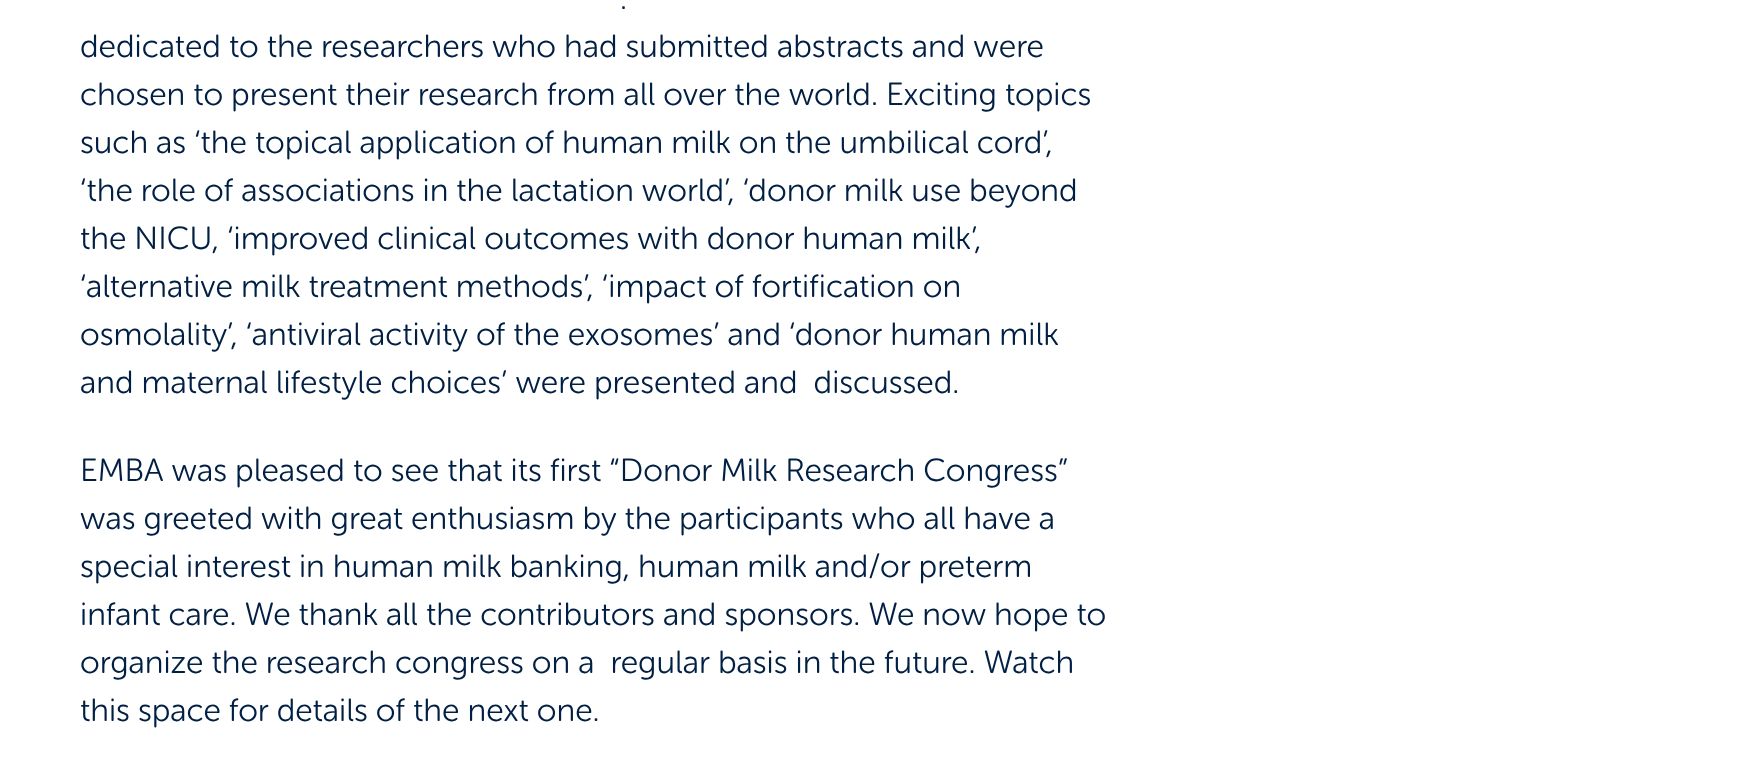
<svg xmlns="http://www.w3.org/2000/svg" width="1745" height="769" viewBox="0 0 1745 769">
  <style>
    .t1 { font: 300 32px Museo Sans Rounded; fill: #001f43; }
  </style>
  <rect width="100%" height="100%" fill="#fff"/>
  <text x="620" y="9" class="t1">.</text>
  <text x="80" y="57" class="t1">dedicated to the researchers who had submitted abstracts and were</text>
  <text x="80" y="105" class="t1">chosen to present their research from all over the world. Exciting topics</text>
  <text x="80" y="153" class="t1">such as ‘the topical application of human milk on the umbilical cord’,</text>
  <text x="80" y="201" class="t1">‘the role of associations in the lactation world’, ‘donor milk use beyond</text>
  <text x="80" y="249" class="t1">the NICU, ‘improved clinical outcomes with donor human milk’,</text>
  <text x="80" y="297" class="t1">‘alternative milk treatment methods’, ‘impact of fortification on</text>
  <text x="80" y="345" class="t1">osmolality’, ‘antiviral activity of the exosomes’ and ‘donor human milk</text>
  <text x="80" y="393" class="t1" xml:space="preserve">and maternal lifestyle choices’ were presented and  discussed.</text>
  <text x="80" y="481" class="t1">EMBA was pleased to see that its first “Donor Milk Research Congress”</text>
  <text x="80" y="529" class="t1">was greeted with great enthusiasm by the participants who all have a</text>
  <text x="80" y="577" class="t1">special interest in human milk banking, human milk and/or preterm</text>
  <text x="80" y="625" class="t1">infant care. We thank all the contributors and sponsors. We now hope to</text>
  <text x="80" y="673" class="t1" xml:space="preserve">organize the research congress on a  regular basis in the future. Watch</text>
  <text x="80" y="721" class="t1">this space for details of the next one.</text>
</svg>
